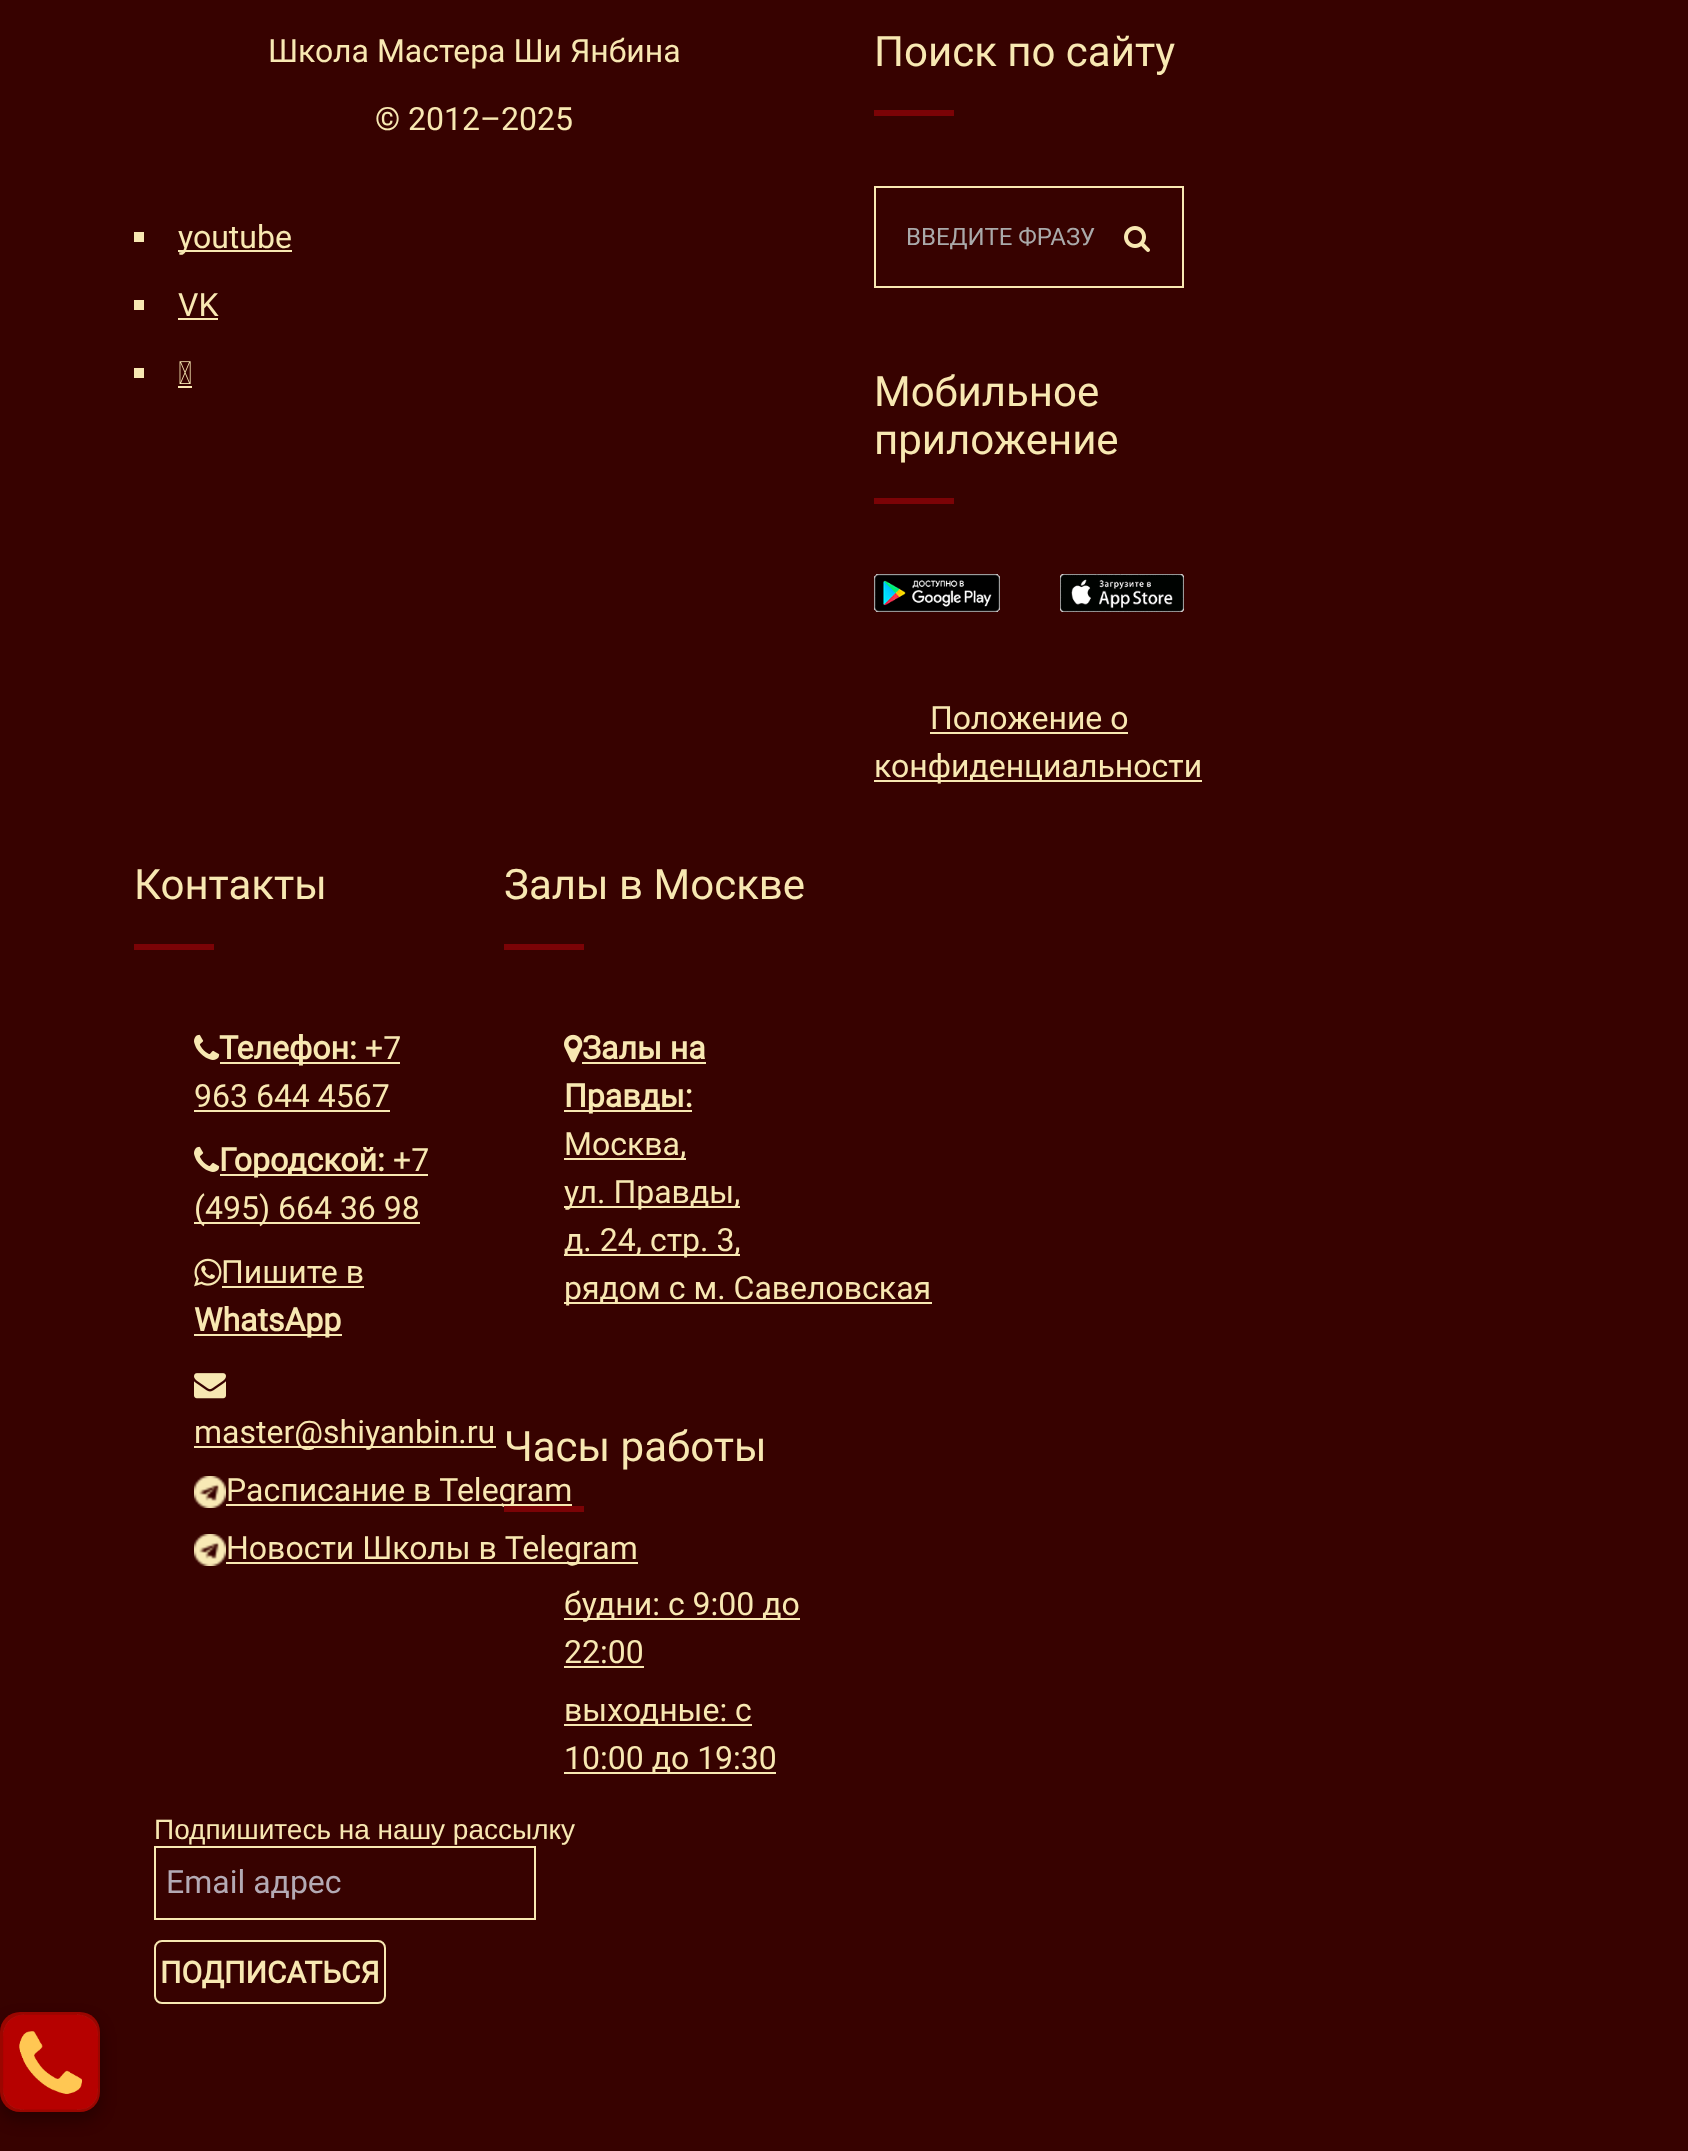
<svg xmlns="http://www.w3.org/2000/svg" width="1688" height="2151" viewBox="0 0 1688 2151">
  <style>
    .t1 { font: 32px Roboto; fill: #f8e8b2; }
    .t2 { font: 42px Roboto; fill: #f8e8b2; }
    .t3 { font: 24px Roboto; fill: #aaa; }
    .t4 { font: bold 32px Roboto; fill: #f8e8b2; }
    .t5 { font: 28px Liberation Sans; fill: #f8e8b2; }
    .t6 { font: 32px Roboto; fill: #b4aab4; }
    .t7 { font: bold 30px Roboto; fill: #f8e8b2; }
  </style>
  <rect width="100%" height="100%" fill="#370200"/>
  <text x="268" y="62" class="t1">Школа Мастера Ши Янбина</text>
  <text x="375" y="130" class="t1">© 2012–2025</text>
  <rect x="134" y="232" width="10" height="10" fill="#f8e8b2"/>
  <rect x="178" y="250" width="114" height="2" fill="#f8e8b2"/>
  <text x="178" y="248" class="t1">youtube</text>
  <rect x="134" y="300" width="10" height="10" fill="#f8e8b2"/>
  <text x="178" y="316" class="t1">VK</text>
  <rect x="178" y="318" width="40" height="2" fill="#f8e8b2"/>
  <rect x="134" y="368" width="10" height="10" fill="#f8e8b2"/>
  <image x="179" y="361" width="12" height="23" href="images/1.png"/>
  <rect x="178" y="386" width="14" height="2" fill="#f8e8b2"/>
  <text x="874" y="66" class="t2">Поиск по сайту</text>
  <rect x="874" y="110" width="80" height="6" fill="#7b0306"/>
  <rect x="875" y="187" width="308" height="100" fill="none" stroke="#f8e8b2" stroke-width="2"/>
  <text x="906" y="245" class="t3">ВВЕДИТЕ ФРАЗУ</text>
  <image x="1124" y="226" width="26" height="26" href="images/2.png"/>
  <text x="874" y="406" class="t2">Мобильное</text>
  <text x="874" y="454" class="t2">приложение</text>
  <rect x="874" y="498" width="80" height="6" fill="#7b0306"/>
  <image x="874" y="574" width="126" height="38" href="images/3.png"/>
  <image x="1060" y="574" width="124" height="38" href="images/4.png"/>
  <text x="930" y="729" class="t1">Положение о</text>
  <rect x="930" y="732" width="198" height="2" fill="#f8e8b2"/>
  <rect x="874" y="780" width="328" height="2" fill="#f8e8b2"/>
  <text x="874" y="777" class="t1">конфиденциальности</text>
  <text x="134" y="899" class="t2">Контакты</text>
  <rect x="134" y="944" width="80" height="6" fill="#7b0306"/>
  <image x="194" y="1034" width="26" height="26" href="images/5.png"/>
  <rect x="220" y="1062" width="180" height="2" fill="#f8e8b2"/>
  <text x="219" y="1059" class="t4">Телефон:</text>
  <text x="365" y="1059" class="t1">+7</text>
  <text x="194" y="1107" class="t1">963 644 4567</text>
  <rect x="194" y="1110" width="196" height="2" fill="#f8e8b2"/>
  <image x="194" y="1146" width="26" height="26" href="images/5.png"/>
  <rect x="220" y="1174" width="208" height="2" fill="#f8e8b2"/>
  <text x="219" y="1171" class="t4">Городской:</text>
  <text x="393" y="1171" class="t1">+7</text>
  <rect x="194" y="1222" width="226" height="2" fill="#f8e8b2"/>
  <text x="194" y="1219" class="t1">(495) 664 36 98</text>
  <image x="194" y="1258" width="28" height="29" href="images/6.png"/>
  <text x="221" y="1283" class="t1">Пишите в</text>
  <rect x="222" y="1286" width="142" height="2" fill="#f8e8b2"/>
  <rect x="194" y="1334" width="148" height="2" fill="#f8e8b2"/>
  <text x="194" y="1331" class="t4">WhatsApp</text>
  <image x="194" y="1373" width="32" height="26" href="images/7.png"/>
  <rect x="194" y="1446" width="302" height="2" fill="#f8e8b2"/>
  <text x="194" y="1443" class="t1">master@shiyanbin.ru</text>
  <image x="194" y="1476" width="32" height="32" href="images/8.png"/>
  <rect x="226" y="1504" width="346" height="2" fill="#f8e8b2"/>
  <text x="226" y="1501" class="t1">Расписание в Telegram</text>
  <image x="194" y="1534" width="32" height="32" href="images/8.png"/>
  <rect x="226" y="1562" width="412" height="2" fill="#f8e8b2"/>
  <text x="226" y="1559" class="t1">Новости Школы в Telegram</text>
  <text x="504" y="899" class="t2">Залы в Москве</text>
  <rect x="504" y="944" width="80" height="6" fill="#7b0306"/>
  <image x="564" y="1034" width="19" height="29" href="images/9.png"/>
  <text x="582" y="1059" class="t4">Залы на</text>
  <rect x="582" y="1062" width="124" height="2" fill="#f8e8b2"/>
  <rect x="564" y="1110" width="128" height="2" fill="#f8e8b2"/>
  <text x="564" y="1107" class="t4">Правды:</text>
  <rect x="564" y="1158" width="122" height="2" fill="#f8e8b2"/>
  <text x="564" y="1155" class="t1">Москва,</text>
  <rect x="564" y="1206" width="176" height="2" fill="#f8e8b2"/>
  <text x="564" y="1203" class="t1">ул. Правды,</text>
  <rect x="564" y="1254" width="176" height="2" fill="#f8e8b2"/>
  <text x="564" y="1251" class="t1">д. 24, стр. 3,</text>
  <rect x="564" y="1302" width="368" height="2" fill="#f8e8b2"/>
  <text x="564" y="1299" class="t1">рядом с м. Савеловская</text>
  <text x="504" y="1461" class="t2">Часы работы</text>
  <rect x="504" y="1506" width="80" height="6" fill="#7b0306"/>
  <rect x="564" y="1618" width="236" height="2" fill="#f8e8b2"/>
  <text x="564" y="1615" class="t1">будни: с 9:00 до</text>
  <text x="564" y="1663" class="t1">22:00</text>
  <rect x="564" y="1666" width="80" height="2" fill="#f8e8b2"/>
  <rect x="564" y="1724" width="188" height="2" fill="#f8e8b2"/>
  <text x="564" y="1721" class="t1">выходные: с</text>
  <rect x="564" y="1772" width="212" height="2" fill="#f8e8b2"/>
  <text x="564" y="1769" class="t1">10:00 до 19:30</text>
  <text x="154" y="1839" class="t5">Подпишитесь на нашу рассылку</text>
  <rect x="155" y="1847" width="380" height="72" fill="none" stroke="#f8e8b2" stroke-width="2"/>
  <text x="166" y="1893" class="t6">Email адрес</text>
  <rect x="155" y="1941" width="230" height="62" rx="7" fill="none" stroke="#f8e8b2" stroke-width="2"/>
  <text x="160" y="1983" class="t7">ПОДПИСАТЬСЯ</text>
  <rect x="0" y="2020" width="100" height="100" rx="20" fill="#0000004d" filter="blur(8px)"/>
  <rect x="0" y="2012" width="100" height="100" rx="20" fill="#9b0600"/>
  <image x="3" y="2014" width="95" height="96" href="images/10.png"/>
</svg>
